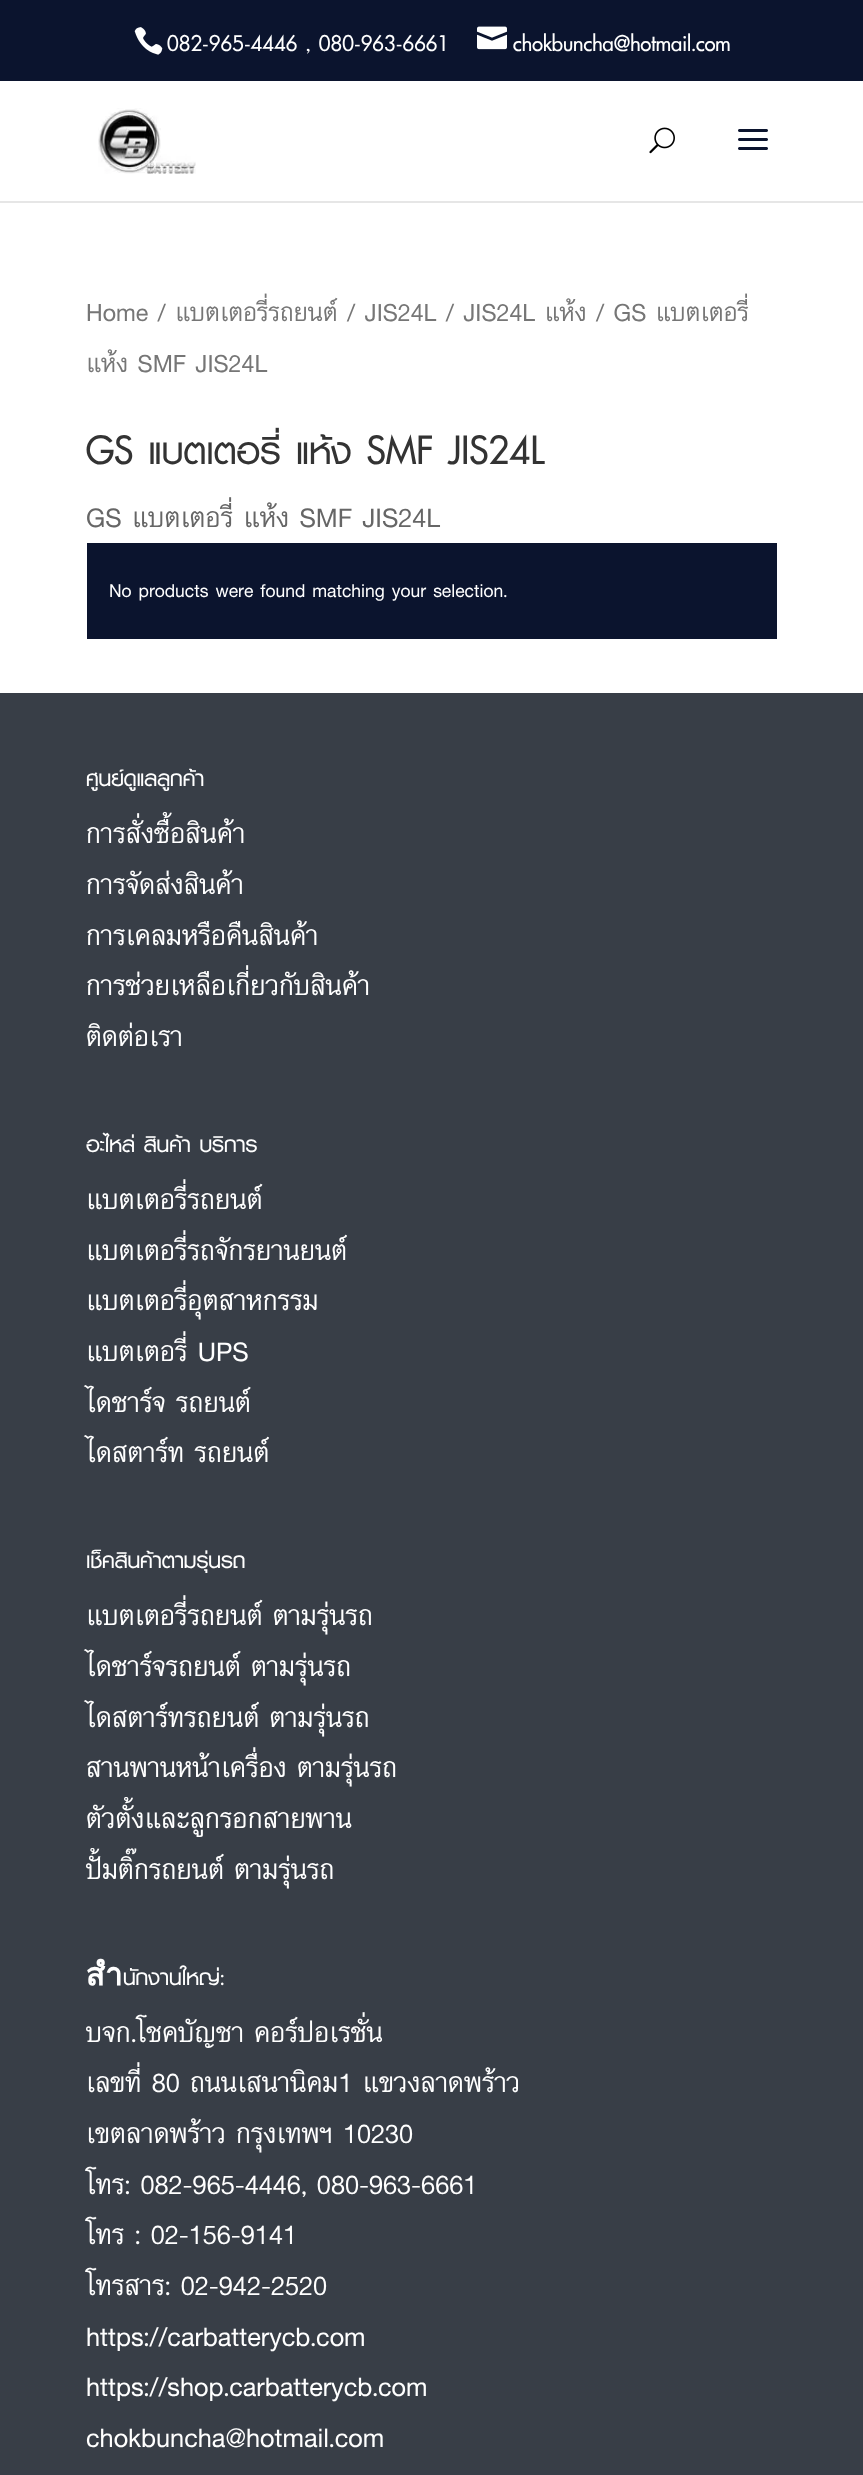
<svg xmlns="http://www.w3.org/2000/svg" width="863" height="2475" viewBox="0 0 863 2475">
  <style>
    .t1 { font: bold 30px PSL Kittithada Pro; fill: #fff; }
    .t2 { font: 35.9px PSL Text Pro; fill: #767676; }
    .t3 { font: bold 54px PSL Kittithada Pro; fill: #333; }
    .t4 { font: 39px PSL Text Pro; fill: #666; }
    .t5 { font: 27px PSL Text Pro; fill: #fff; }
    .t6 { font: bold 31.5px PSL Kittithada Pro; fill: #fff; }
    .t7 { font: 39px PSL Text Pro; fill: #fff; }
  </style>
  <rect width="100%" height="100%" fill="#fff"/>
  <rect x="0" y="0" width="863" height="81" fill="#0b142e"/>
  <image x="134" y="27" width="29" height="28" href="images/1.png"/>
  <text x="167" y="51" class="t1">082-965-4446 , 080-963-6661</text>
  <image x="477" y="26" width="30" height="24" href="images/2.png"/>
  <text x="513" y="51" class="t1">chokbuncha@hotmail.com</text>
  <rect x="0" y="201" width="863" height="2" fill="#e6e6e6"/>
  <image x="98" y="108" width="98" height="66" href="images/3.png"/>
  <image x="649" y="127" width="26" height="27" href="images/4.png"/>
  <image x="738" y="129" width="30" height="21" href="images/5.png"/>
  <text x="86" y="321" class="t2">Home / แบตเตอรี่รถยนต์ / JIS24L / JIS24L แห้ง / GS แบตเตอรี่</text>
  <text x="86" y="372" class="t2">แห้ง SMF JIS24L</text>
  <text x="86" y="464" class="t3">GS แบตเตอรี่ แห้ง SMF JIS24L</text>
  <text x="86" y="527" class="t4">GS แบตเตอรี่ แห้ง SMF JIS24L</text>
  <rect x="87" y="543" width="690" height="96" fill="#0b142e"/>
  <text x="109" y="597" class="t5">No products were found matching your selection.</text>
  <rect x="0" y="693" width="863" height="1782" fill="#383e47"/>
  <text x="86" y="786" class="t6">ศูนย์ดูแลลูกค้า</text>
  <text x="86" y="843" class="t7">การสั่งซื้อสินค้า</text>
  <text x="86" y="894" class="t7">การจัดส่งสินค้า</text>
  <text x="86" y="945" class="t7">การเคลมหรือคืนสินค้า</text>
  <text x="86" y="995" class="t7">การช่วยเหลือเกี่ยวกับสินค้า</text>
  <text x="86" y="1046" class="t7">ติดต่อเรา</text>
  <text x="86" y="1152" class="t6">อะไหล่ สินค้า บริการ</text>
  <text x="86" y="1209" class="t7">แบตเตอรี่รถยนต์</text>
  <text x="86" y="1260" class="t7">แบตเตอรี่รถจักรยานยนต์</text>
  <text x="86" y="1310" class="t7">แบตเตอรี่อุตสาหกรรม</text>
  <text x="86" y="1361" class="t7">แบตเตอรี่ UPS</text>
  <text x="86" y="1412" class="t7">ไดชาร์จ รถยนต์</text>
  <text x="86" y="1462" class="t7">ไดสตาร์ท รถยนต์</text>
  <text x="86" y="1568" class="t6">เช็คสินค้าตามรุ่นรถ</text>
  <text x="86" y="1625" class="t7">แบตเตอรี่รถยนต์ ตามรุ่นรถ</text>
  <text x="86" y="1676" class="t7">ไดชาร์จรถยนต์ ตามรุ่นรถ</text>
  <text x="86" y="1727" class="t7">ไดสตาร์ทรถยนต์ ตามรุ่นรถ</text>
  <text x="86" y="1777" class="t7">สานพานหน้าเครื่อง ตามรุ่นรถ</text>
  <text x="86" y="1828" class="t7">ตัวตั้งและลูกรอกสายพาน</text>
  <text x="86" y="1879" class="t7">ปั้มติ๊กรถยนต์ ตามรุ่นรถ</text>
  <text x="86" y="1985" class="t6">สำนักงานใหญ่:</text>
  <text x="86" y="2042" class="t7">บจก.โชคบัญชา คอร์ปอเรชั่น</text>
  <text x="86" y="2092" class="t7">เลขที่ 80 ถนนเสนานิคม1 แขวงลาดพร้าว</text>
  <text x="86" y="2143" class="t7">เขตลาดพร้าว กรุงเทพฯ 10230</text>
  <text x="86" y="2194" class="t7">โทร: 082-965-4446, 080-963-6661</text>
  <text x="86" y="2244" class="t7">โทร : 02-156-9141</text>
  <text x="86" y="2295" class="t7">โทรสาร: 02-942-2520</text>
  <text x="86" y="2346" class="t7">https://carbatterycb.com</text>
  <text x="86" y="2396" class="t7">https://shop.carbatterycb.com</text>
  <text x="86" y="2447" class="t7">chokbuncha@hotmail.com</text>
</svg>
